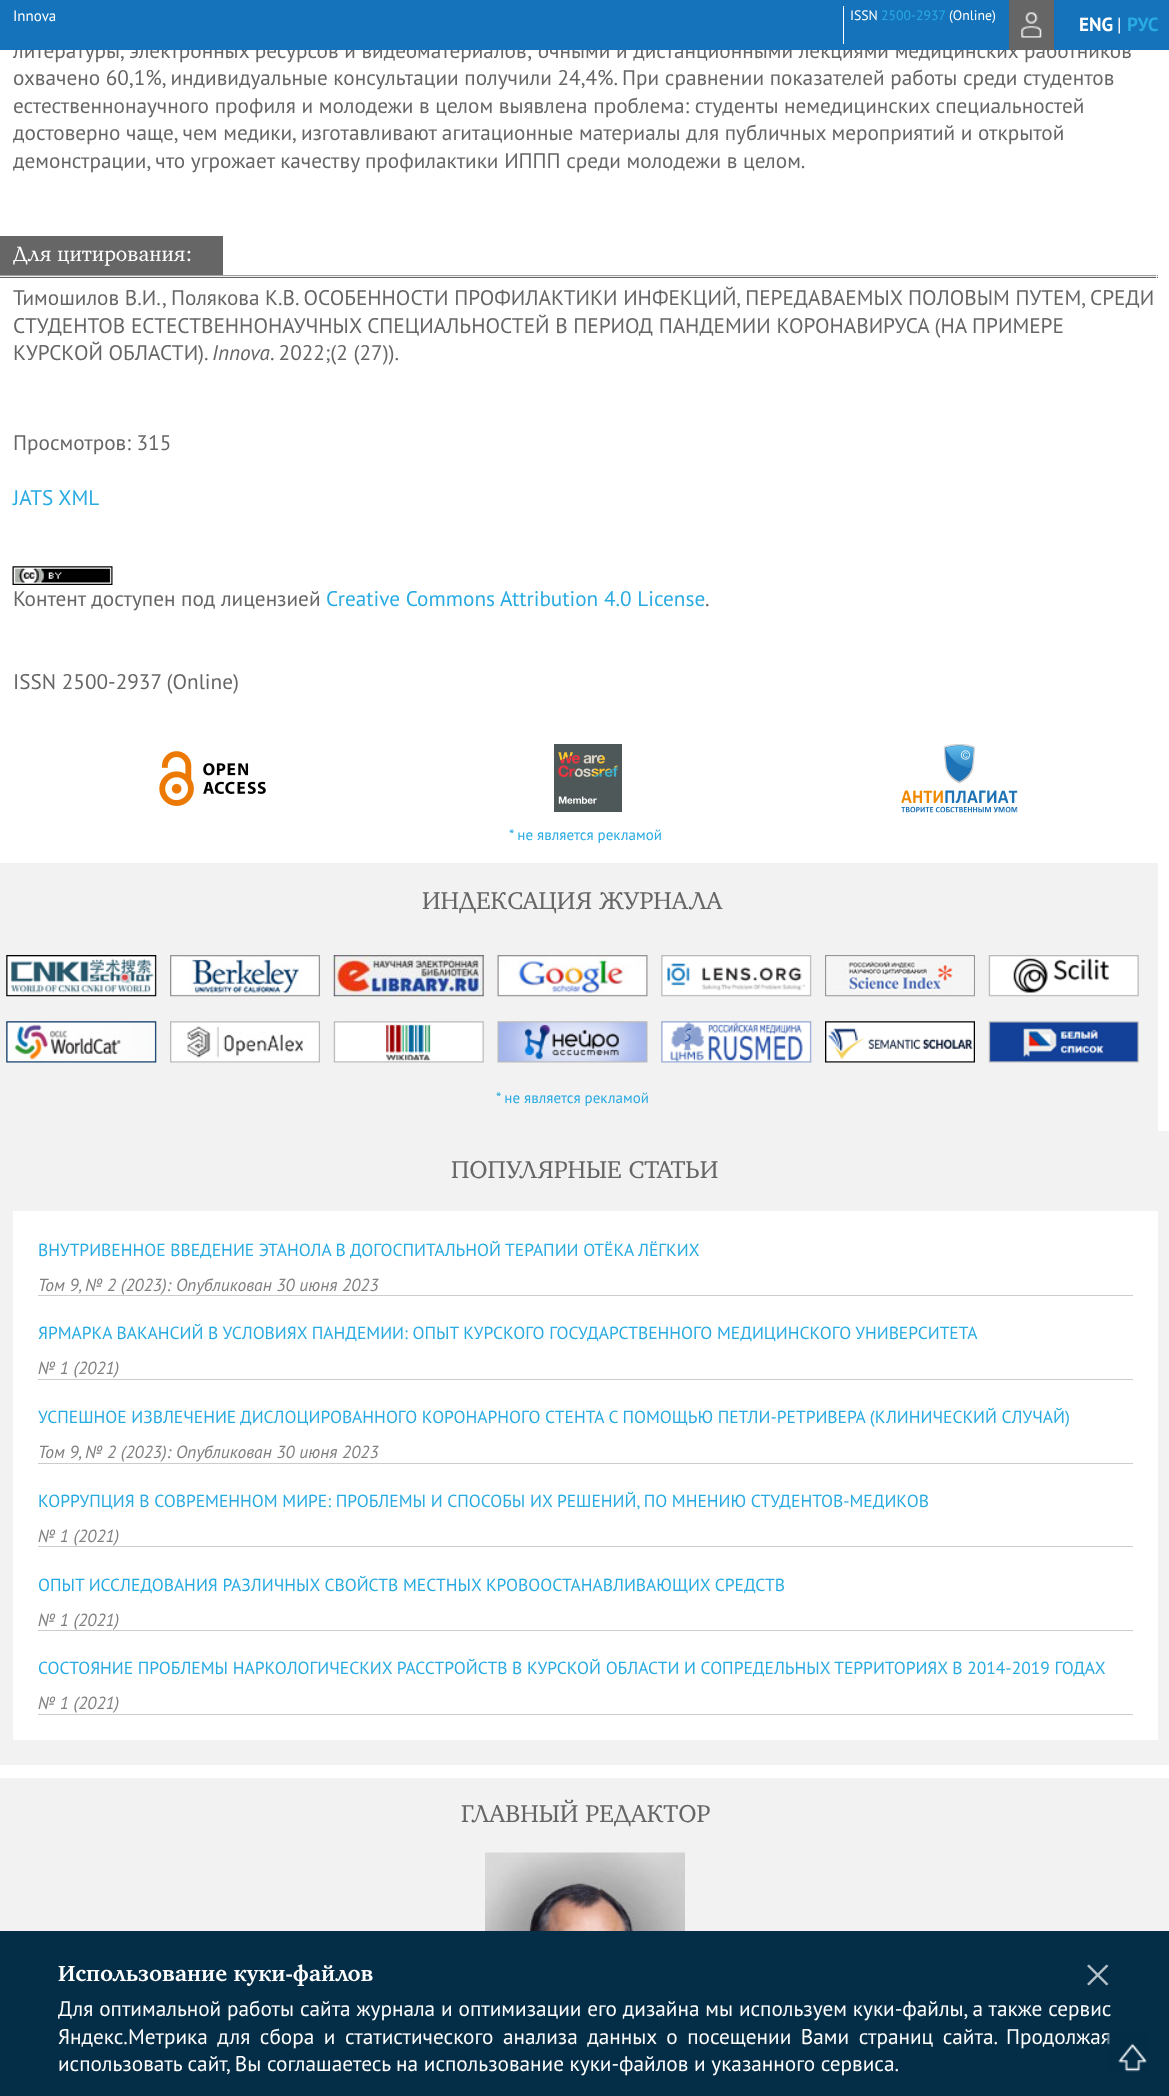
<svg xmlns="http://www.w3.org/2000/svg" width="1169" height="2096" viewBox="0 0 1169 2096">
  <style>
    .t1 { font: 21.25px PT Sans; fill: #666; }
    .t2 { font: 15px PT Sans; fill: #fff; }
    .t3 { font: 13.75px PT Sans; fill: #fff; }
    .t4 { font: 13.75px PT Sans; fill: #29abe2; }
    .t5 { font: bold 19px PT Sans; fill: #fff; }
    .t6 { font: 19px PT Sans; fill: #fff; }
    .t7 { font: bold 19px PT Sans; fill: #29abe2; }
    .t8 { font: 21.25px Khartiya; fill: #fff; }
    .t9 { font: italic 21.25px PT Sans; fill: #666; }
    .t10 { font: 21.25px PT Sans; fill: #29abe2; }
    .t11 { font: 15px PT Sans; fill: #29abe2; }
    .t12 { font: 25px Khartiya; fill: #666; }
    .t13 { font: 17.5px PT Sans; fill: #29abe2; }
    .t14 { font: italic 17.5px PT Sans; fill: #808080; }
    .t15 { font: 21.25px PT Sans; fill: #fff; }
    .t16 { font: bold 22.5px Khartiya; fill: #fff; }
  </style>
  <rect width="100%" height="100%" fill="#fff"/>
  <text x="13" y="58" class="t1">литературы, электронных ресурсов и видеоматериалов; очными и дистанционными лекциями медицинских работников</text>
  <rect x="0" y="0" width="1169" height="50" fill="#1573bb"/>
  <text x="13" y="21" class="t2">Innova</text>
  <rect x="843" y="6" width="1" height="38" fill="#fff"/>
  <text x="850" y="20" class="t3">ISSN</text>
  <text x="881" y="20" class="t4">2500-2937</text>
  <text x="949" y="20" class="t3">(Online)</text>
  <rect x="1009" y="0" width="45" height="50" fill="#666"/>
  <image x="1021" y="12" width="21" height="26" href="images/1.png"/>
  <text x="1079" y="31" class="t5">ENG</text>
  <text x="1117" y="31" class="t6">|</text>
  <text x="1127" y="31" class="t7">РУС</text>
  <text x="13" y="85" class="t1">охвачено 60,1%, индивидуальные консультации получили 24,4%. При сравнении показателей работы среди студентов</text>
  <text x="13" y="113" class="t1">естественнонаучного профиля и молодежи в целом выявлена проблема: студенты немедицинских специальностей</text>
  <text x="13" y="140" class="t1">достоверно чаще, чем медики, изготавливают агитационные материалы для публичных мероприятий и открытой</text>
  <text x="13" y="168" class="t1">демонстрации, что угрожает качеству профилактики ИППП среди молодежи в целом.</text>
  <rect x="0" y="236" width="223" height="39" fill="#666"/>
  <text x="13" y="261" class="t8">Для цитирования:</text>
  <rect x="0" y="277" width="1158" height="1" fill="#666"/>
  <rect x="0" y="275" width="1158" height="1" fill="#9f9f9f"/>
  <rect x="1156" y="275" width="1" height="3" fill="#eee"/>
  <rect x="0" y="276" width="1158" height="1" fill="#eee"/>
  <text x="13" y="305" class="t1">Тимошилов В.И., Полякова К.В. ОСОБЕННОСТИ ПРОФИЛАКТИКИ ИНФЕКЦИЙ, ПЕРЕДАВАЕМЫХ ПОЛОВЫМ ПУТЕМ, СРЕДИ</text>
  <text x="13" y="333" class="t1">СТУДЕНТОВ ЕСТЕСТВЕННОНАУЧНЫХ СПЕЦИАЛЬНОСТЕЙ В ПЕРИОД ПАНДЕМИИ КОРОНАВИРУСА (НА ПРИМЕРЕ</text>
  <text x="13" y="360" class="t1">КУРСКОЙ ОБЛАСТИ).</text>
  <text x="212" y="360" class="t9">Innova</text>
  <text x="270" y="360" class="t1">. 2022;(2 (27)).</text>
  <text x="13" y="450" class="t1">Просмотров: 315</text>
  <text x="13" y="505" class="t10">JATS XML</text>
  <image x="12" y="566" width="101" height="19" href="images/2.png"/>
  <text x="13" y="606" class="t1">Контент доступен под лицензией</text>
  <text x="326" y="606" class="t10">Creative Commons Attribution 4.0 License</text>
  <text x="705" y="606" class="t1">.</text>
  <text x="13" y="689" class="t1">ISSN 2500-2937 (Online)</text>
  <image x="159" y="751" width="107" height="55" href="images/3.png"/>
  <image x="554" y="744" width="68" height="68" href="images/4.png"/>
  <image x="901" y="744" width="117" height="69" href="images/5.png"/>
  <text x="509" y="840" class="t11">* не является рекламой</text>
  <rect x="0" y="863" width="1158" height="268" fill="#f2f2f2"/>
  <text x="422" y="909" class="t12">ИНДЕКСАЦИЯ ЖУРНАЛА</text>
  <image x="6" y="955" width="151" height="42" href="images/6.png"/>
  <image x="170" y="955" width="150" height="42" href="images/7.png"/>
  <image x="333" y="955" width="151" height="42" href="images/8.png"/>
  <image x="497" y="955" width="151" height="42" href="images/9.png"/>
  <image x="661" y="955" width="151" height="42" href="images/10.png"/>
  <image x="825" y="955" width="150" height="42" href="images/11.png"/>
  <image x="988" y="955" width="151" height="42" href="images/12.png"/>
  <image x="6" y="1021" width="151" height="42" href="images/13.png"/>
  <image x="170" y="1021" width="150" height="42" href="images/14.png"/>
  <image x="333" y="1021" width="151" height="42" href="images/15.png"/>
  <image x="497" y="1021" width="151" height="42" href="images/16.png"/>
  <image x="661" y="1021" width="151" height="42" href="images/17.png"/>
  <image x="825" y="1021" width="150" height="42" href="images/18.png"/>
  <image x="988" y="1021" width="151" height="42" href="images/19.png"/>
  <text x="496" y="1103" class="t11">* не является рекламой</text>
  <rect x="0" y="1131" width="1169" height="634" fill="#f2f2f2"/>
  <text x="451" y="1178" class="t12">ПОПУЛЯРНЫЕ СТАТЬИ</text>
  <rect x="13" y="1211" width="1145" height="529" fill="#fff"/>
  <text x="38" y="1256" class="t13">ВНУТРИВЕННОЕ ВВЕДЕНИЕ ЭТАНОЛА В ДОГОСПИТАЛЬНОЙ ТЕРАПИИ ОТЁКА ЛЁГКИХ</text>
  <text x="38" y="1291" class="t14">Том 9, № 2 (2023): Опубликован 30 июня 2023</text>
  <rect x="38" y="1295" width="1095" height="1" fill="#ccc"/>
  <text x="38" y="1339" class="t13">ЯРМАРКА ВАКАНСИЙ В УСЛОВИЯХ ПАНДЕМИИ: ОПЫТ КУРСКОГО ГОСУДАРСТВЕННОГО МЕДИЦИНСКОГО УНИВЕРСИТЕТА</text>
  <text x="38" y="1374" class="t14">№ 1 (2021)</text>
  <rect x="38" y="1379" width="1095" height="1" fill="#ccc"/>
  <text x="38" y="1423" class="t13">УСПЕШНОЕ ИЗВЛЕЧЕНИЕ</text>
  <text x="240" y="1423" class="t13">ДИСЛОЦИРОВАННОГО КОРОНАРНОГО СТЕНТА С ПОМОЩЬЮ ПЕТЛИ-РЕТРИВЕРА (КЛИНИЧЕСКИЙ СЛУЧАЙ)</text>
  <text x="38" y="1458" class="t14">Том 9, № 2 (2023): Опубликован 30 июня 2023</text>
  <rect x="38" y="1463" width="1095" height="1" fill="#ccc"/>
  <text x="38" y="1507" class="t13">КОРРУПЦИЯ В СОВРЕМЕННОМ МИРЕ: ПРОБЛЕМЫ И СПОСОБЫ ИХ РЕШЕНИЙ, ПО МНЕНИЮ СТУДЕНТОВ-МЕДИКОВ</text>
  <text x="38" y="1542" class="t14">№ 1 (2021)</text>
  <rect x="38" y="1546" width="1095" height="1" fill="#ccc"/>
  <text x="38" y="1591" class="t13">ОПЫТ ИССЛЕДОВАНИЯ РАЗЛИЧНЫХ СВОЙСТВ МЕСТНЫХ КРОВООСТАНАВЛИВАЮЩИХ СРЕДСТВ</text>
  <text x="38" y="1626" class="t14">№ 1 (2021)</text>
  <rect x="38" y="1630" width="1095" height="1" fill="#ccc"/>
  <text x="38" y="1674" class="t13">СОСТОЯНИЕ ПРОБЛЕМЫ НАРКОЛОГИЧЕСКИХ РАССТРОЙСТВ В КУРСКОЙ ОБЛАСТИ И СОПРЕДЕЛЬНЫХ ТЕРРИТОРИЯХ В 2014-2019 ГОДАХ</text>
  <text x="38" y="1709" class="t14">№ 1 (2021)</text>
  <rect x="38" y="1714" width="1095" height="1" fill="#ccc"/>
  <rect x="0" y="1778" width="1169" height="153" fill="#f2f2f2"/>
  <text x="461" y="1822" class="t12">ГЛАВНЫЙ РЕДАКТОР</text>
  <image x="485" y="1852" width="200" height="79" href="images/20.png"/>
  <rect x="0" y="1931" width="1169" height="165" fill="#042e47"/>
  <text x="58" y="2044" word-spacing="3.9" class="t15">Яндекс.Метрика для сбора и статистического анализа данных о посещении Вами страниц сайта. Продолжая</text>
  <image x="1107" y="2033" width="40" height="39" href="images/21.png"/>
  <text x="58" y="1981" class="t16">Использование куки-файлов</text>
  <path d="M1106.5 1964.5L1108.5 1966L1089 1985.5L1087 1984Z" fill="#b4c0c8"/>
  <path d="M1087 1966L1089 1964.5L1108.5 1984L1106.5 1985.5Z" fill="#b4c0c8"/>
  <text x="58" y="2016" word-spacing="0.2" class="t15">Для оптимальной работы сайта журнала и оптимизации его дизайна мы используем куки-файлы, а также сервис</text>
  <text x="58" y="2071" class="t15">использовать сайт, Вы соглашаетесь на использование куки-файлов и указанного сервиса.</text>
</svg>
